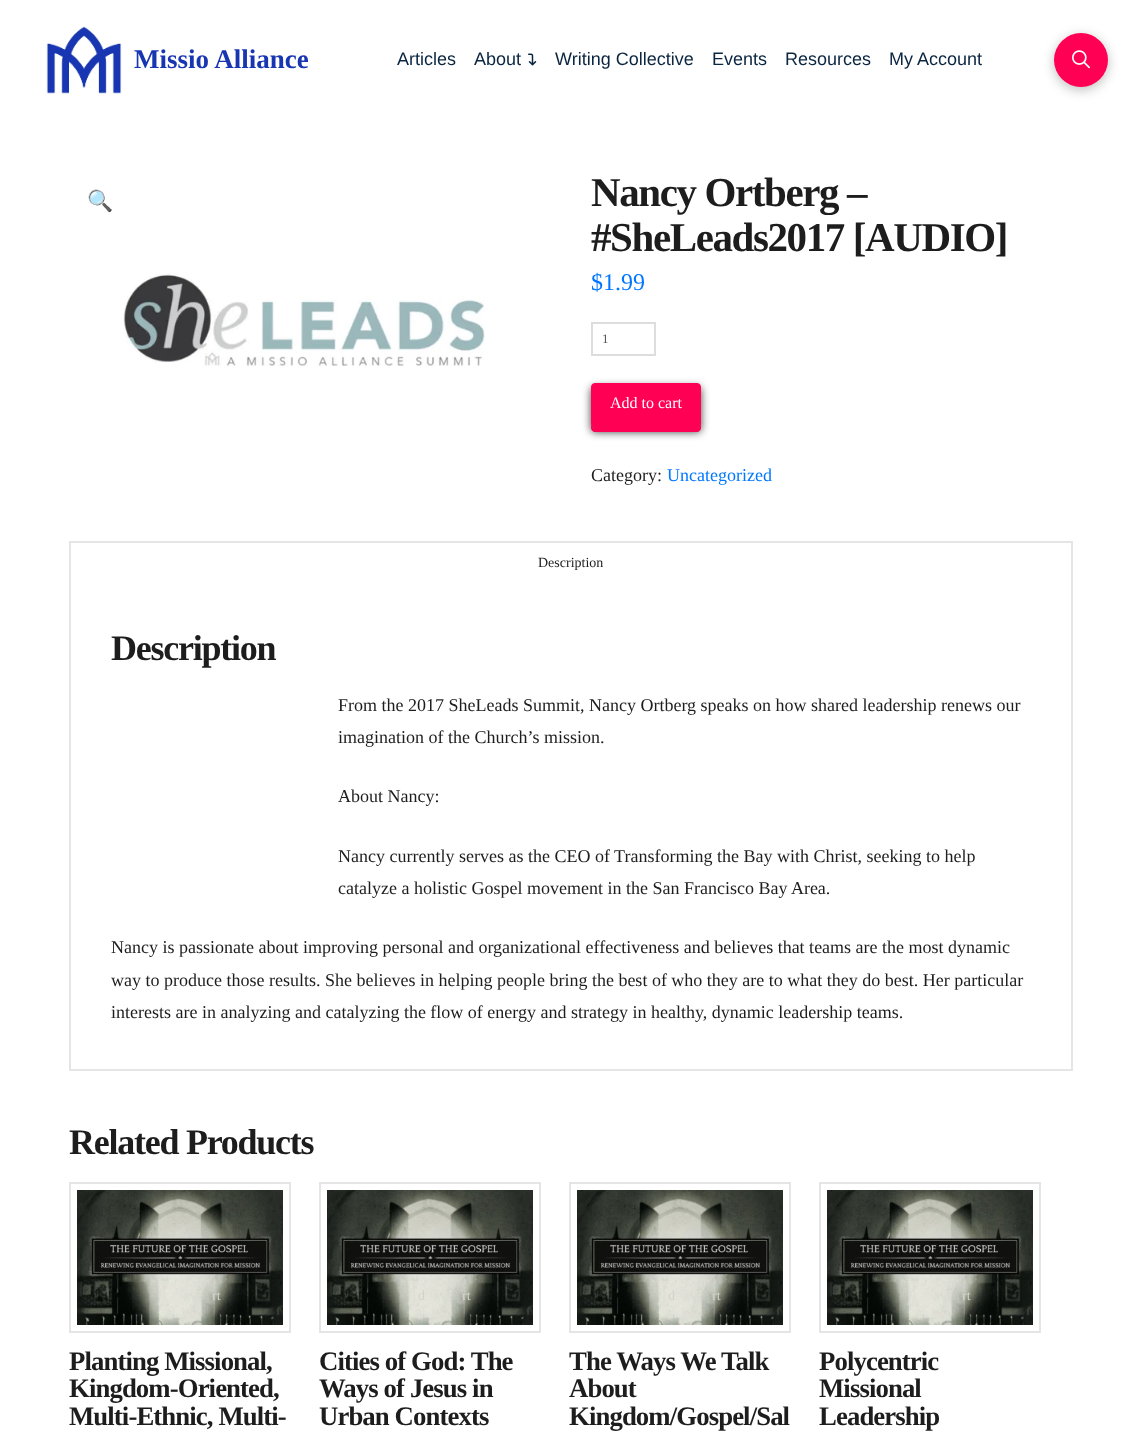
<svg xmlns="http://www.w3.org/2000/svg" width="1142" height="1443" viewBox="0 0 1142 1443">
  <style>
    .t1 { font: bold 27px Liberation Serif; fill: #1936b2; }
    .t2 { font: 18px Liberation Sans; fill: #0a2540; }
    .t3 { font: 21px Noto Color Emoji; fill: #07f; }
    .t4 { font: bold 41px Liberation Serif; letter-spacing: -1.4px; fill: #1d1d1d; }
    .t5 { font: 24px Liberation Serif; fill: #07f; }
    .t6 { font: 13px Liberation Serif; fill: #555; }
    .t7 { font: 16px Liberation Serif; fill: #fff; }
    .t8 { font: 18px Liberation Serif; fill: #1d1d1d; }
    .t9 { font: 18px Liberation Serif; fill: #07f; }
    .t10 { font: 14px Liberation Serif; fill: #1d1d1d; }
    .t11 { font: bold 36px Liberation Serif; letter-spacing: -1.25px; fill: #1d1d1d; }
    .t12 { font: 14px Liberation Serif; fill: #d1d2c8; }
    .t13 { font: bold 26.75px Liberation Serif; letter-spacing: -0.9px; fill: #1d1d1d; }
  </style>
  <rect width="100%" height="100%" fill="#fff"/>
  <image x="46" y="26" width="76" height="68" href="images/1.png"/>
  <text x="134" y="68" class="t1">Missio Alliance</text>
  <text x="397" y="65" class="t2">Articles</text>
  <text x="474" y="65" class="t2">About</text>
  <image x="528" y="53" width="9" height="13" href="images/2.png"/>
  <text x="555" y="65" class="t2">Writing Collective</text>
  <text x="712" y="65" class="t2">Events</text>
  <text x="785" y="65" class="t2">Resources</text>
  <text x="889" y="65" class="t2">My Account</text>
  <rect x="1054" y="36" width="54" height="54" rx="27" fill="#00000040" filter="blur(6px)"/>
  <circle cx="1081" cy="60" r="27" fill="#ff0054"/>
  <image x="1072" y="50" width="18" height="19" href="images/3.png"/>
  <text x="87" y="208" class="t3">🔍</text>
  <image x="123" y="273" width="362" height="93" href="images/4.png"/>
  <text x="591" y="206" class="t4">Nancy Ortberg –</text>
  <text x="591" y="251" class="t4">#SheLeads2017 [AUDIO]</text>
  <text x="591" y="290" class="t5">$1.99</text>
  <rect x="592" y="323" width="63" height="32" fill="none" stroke="#ddd" stroke-width="2"/>
  <text x="602" y="343" class="t6">1</text>
  <rect x="591" y="387" width="110" height="45" rx="4" fill="#000000bf" filter="blur(4.5px)"/>
  <path d="M591 424V428C591 430 593 432 595 432H697C699 432 701 430 701 428V424C701 426 699 428 697 428H595C593 428 591 426 591 424Z" fill="#ff0054"/>
  <rect x="591.5" y="383.5" width="109" height="44" rx="3.5" fill="#ff0054" stroke="#ff0054"/>
  <text x="610" y="408" class="t7">Add to cart</text>
  <text x="591" y="481" class="t8">Category:</text>
  <text x="667" y="481" class="t9">Uncategorized</text>
  <rect x="69" y="541" width="1004" height="2" fill="#e5e5e5"/>
  <rect x="1071" y="541" width="2" height="530" fill="#e5e5e5"/>
  <rect x="69" y="541" width="2" height="46" fill="#e5e5e5"/>
  <text x="538" y="567" class="t10">Description</text>
  <rect x="69" y="1069" width="1004" height="2" fill="#e5e5e5"/>
  <rect x="69" y="587" width="2" height="484" fill="#e5e5e5"/>
  <text x="111" y="660" class="t11">Description</text>
  <text x="338" y="711" class="t8">From the 2017 SheLeads Summit, Nancy Ortberg speaks on how shared leadership renews our</text>
  <text x="338" y="743" class="t8">imagination of the Church’s mission.</text>
  <text x="338" y="802" class="t8">About Nancy:</text>
  <text x="338" y="862" class="t8">Nancy currently serves as the CEO of Transforming the Bay with Christ, seeking to help</text>
  <text x="338" y="894" class="t8">catalyze a holistic Gospel movement in the San Francisco Bay Area.</text>
  <text x="111" y="953" class="t8">Nancy is passionate about improving personal and organizational effectiveness and believes that teams are the most dynamic</text>
  <text x="111" y="986" class="t8">way to produce those results. She believes in helping people bring the best of who they are to what they do best. Her particular</text>
  <text x="111" y="1018" class="t8">interests are in analyzing and catalyzing the flow of energy and strategy in healthy, dynamic leadership teams.</text>
  <text x="69" y="1154" class="t11">Related Products</text>
  <rect x="70" y="1183" width="220" height="149" fill="none" stroke="#e5e5e5" stroke-width="2"/>
  <image x="77" y="1190" width="206" height="135" href="images/5.png"/>
  <text x="212" y="1300" class="t12">rt</text>
  <text x="69" y="1370" class="t13">Planting Missional,</text>
  <text x="69" y="1397" class="t13">Kingdom-Oriented,</text>
  <text x="69" y="1425" class="t13">Multi-Ethnic, Multi-</text>
  <rect x="320" y="1183" width="220" height="149" fill="none" stroke="#e5e5e5" stroke-width="2"/>
  <image x="327" y="1190" width="206" height="135" href="images/6.png"/>
  <text x="418" y="1300" class="t12">d</text>
  <text x="462" y="1300" class="t12">rt</text>
  <text x="319" y="1370" class="t13">Cities of God: The</text>
  <text x="319" y="1397" class="t13">Ways of Jesus in</text>
  <text x="319" y="1425" class="t13">Urban Contexts</text>
  <rect x="570" y="1183" width="220" height="149" fill="none" stroke="#e5e5e5" stroke-width="2"/>
  <image x="577" y="1190" width="206" height="135" href="images/5.png"/>
  <text x="668" y="1300" class="t12">d</text>
  <text x="712" y="1300" class="t12">rt</text>
  <text x="569" y="1370" class="t13">The Ways We Talk</text>
  <text x="569" y="1397" class="t13">About</text>
  <text x="569" y="1425" class="t13">Kingdom/Gospel/Sal</text>
  <rect x="820" y="1183" width="220" height="149" fill="none" stroke="#e5e5e5" stroke-width="2"/>
  <image x="827" y="1190" width="206" height="135" href="images/5.png"/>
  <text x="962" y="1300" class="t12">rt</text>
  <text x="819" y="1370" class="t13">Polycentric</text>
  <text x="819" y="1397" class="t13">Missional</text>
  <text x="819" y="1425" class="t13">Leadership</text>
</svg>
